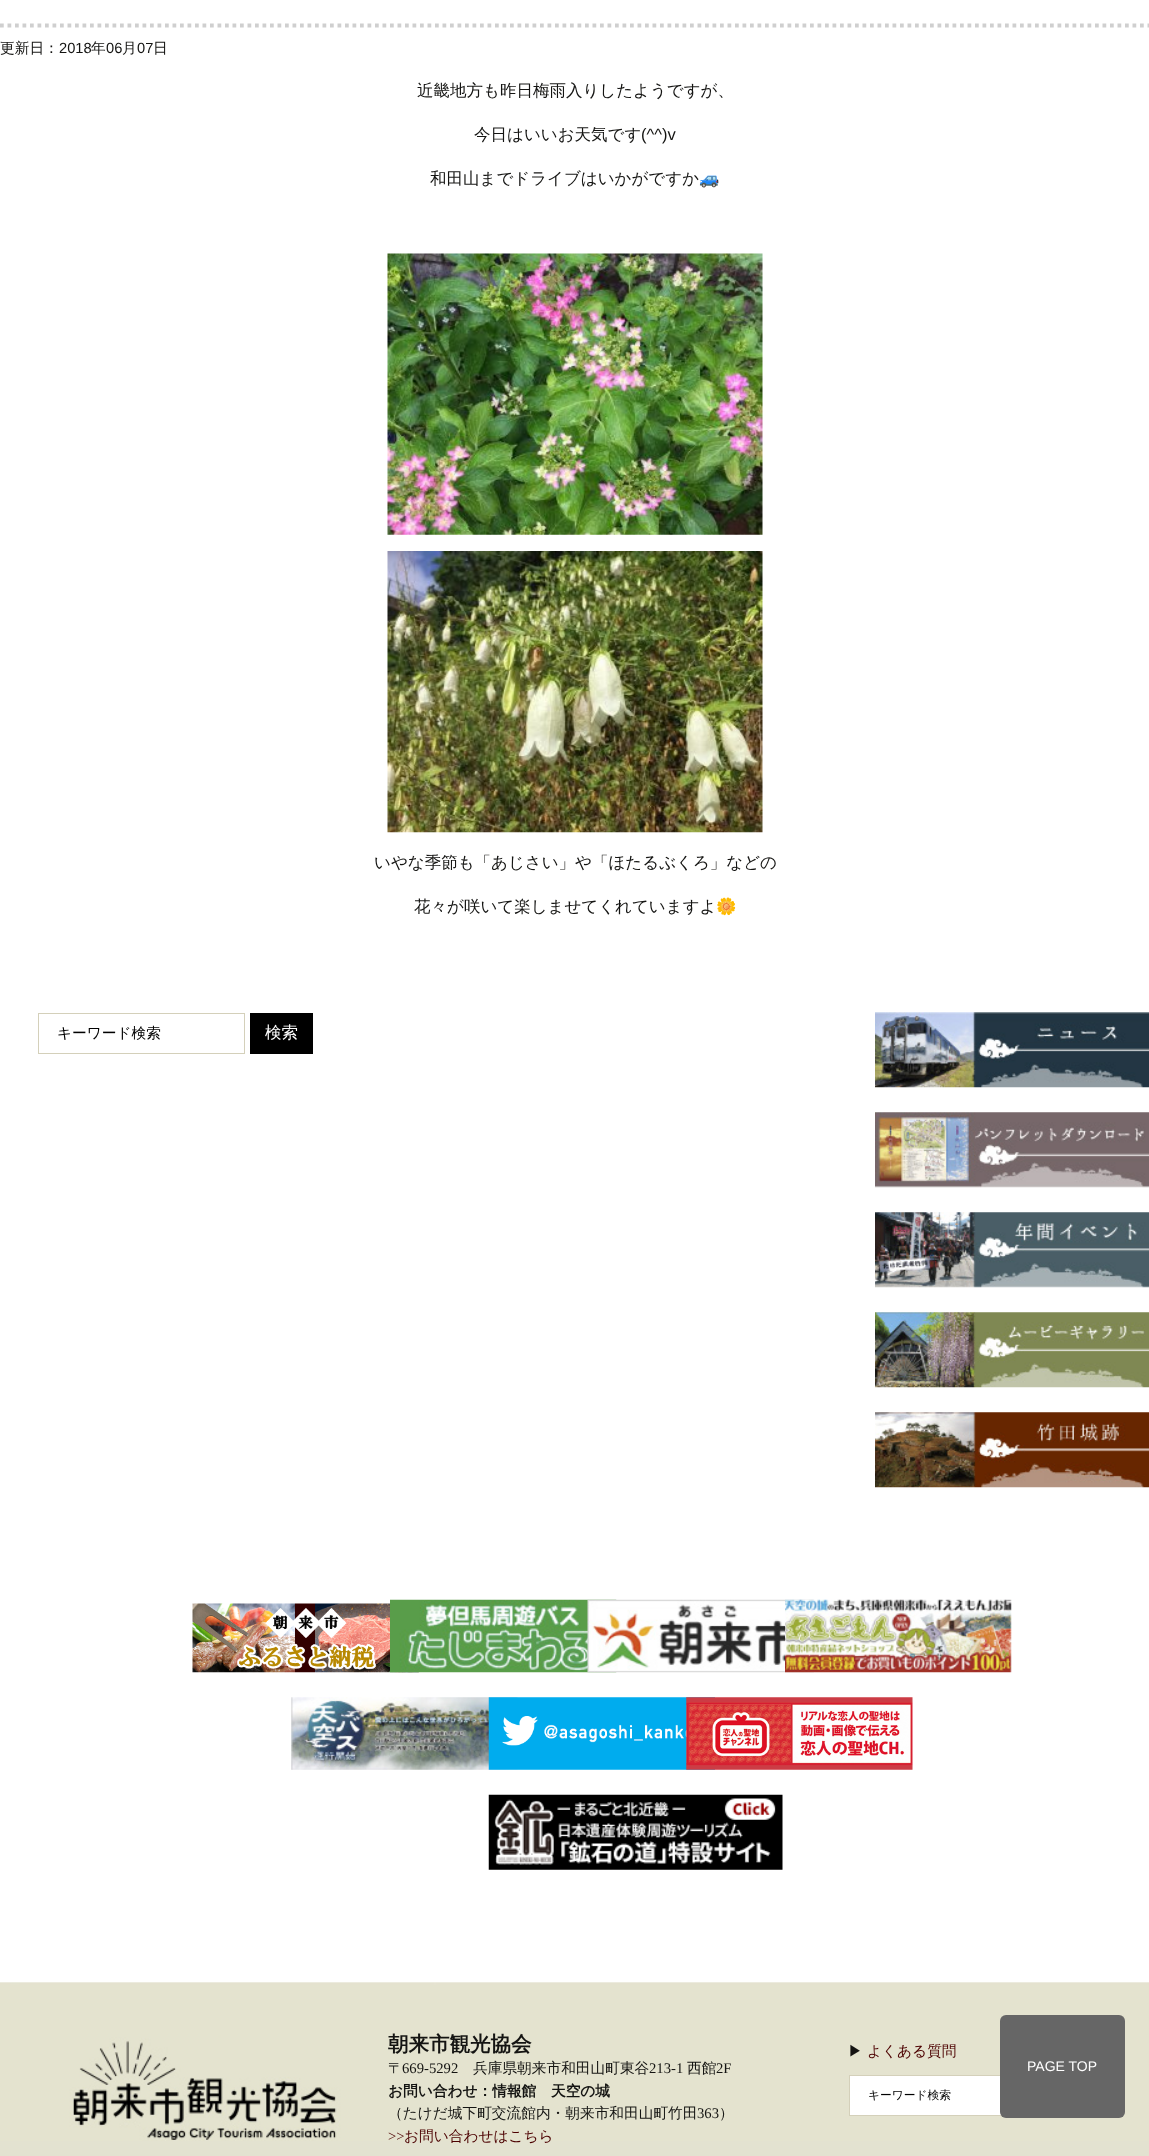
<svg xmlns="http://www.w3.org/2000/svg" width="1149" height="2156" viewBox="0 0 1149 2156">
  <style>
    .t1 { font: 500 14.7px WenQuanYi Zen Hei; fill: #141412; }
    .t2 { font: 14.7px Liberation Sans; fill: #141412; }
    .t3 { font: 500 16.5px WenQuanYi Zen Hei; fill: #141412; }
    .t4 { font: 16.5px Liberation Sans; fill: #141412; }
    .t5 { font: 16.5px Noto Color Emoji; fill: #141412; }
    .t6 { font: 500 14.7px WenQuanYi Zen Hei; fill: #000; }
    .t7 { font: 500 16.5px WenQuanYi Zen Hei; fill: #fff; }
    .t8 { font: bold 20.5px WenQuanYi Zen Hei; fill: #141412; }
    .t9 { font: 14.7px Liberation Serif; fill: #141412; }
    .t10 { font: bold 14.7px WenQuanYi Zen Hei; fill: #141412; }
    .t11 { font: 14.7px Liberation Serif; fill: #4c0000; }
    .t12 { font: 500 14.7px WenQuanYi Zen Hei; fill: #4c0000; }
    .t13 { font: 500 11.75px WenQuanYi Zen Hei; fill: #000; }
    .t14 { font: 14px Liberation Sans; fill: #fff; }
  </style>
  <rect width="100%" height="100%" fill="#fff"/>
  <path d="M0 25.5H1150" fill="none" stroke="#cfcfcf" stroke-width="3.8" stroke-dasharray="3.75 3.75"/>
  <text x="0" y="53" class="t1">更新日：</text>
  <text x="59" y="53" class="t2">2018</text>
  <text x="91" y="53" class="t1">年</text>
  <text x="106" y="53" class="t2">06</text>
  <text x="122" y="53" class="t1">月</text>
  <text x="137" y="53" class="t2">07</text>
  <text x="153" y="53" class="t1">日</text>
  <text x="417" y="96" class="t3">近畿地方も昨日梅雨入りしたようですが、</text>
  <text x="474" y="140" class="t3">今日はいいお天気です</text>
  <text x="641" y="140" class="t4">(^^)v</text>
  <text x="430" y="184" class="t3">和田山までドライブはいかがですか</text>
  <text x="699" y="184" class="t5">🚙</text>
  <image x="387" y="253" width="376" height="282" href="images/1.png"/>
  <image x="387" y="551" width="376" height="282" href="images/2.png"/>
  <text x="374" y="868" class="t3">いやな季節も「あじさい」や「ほたるぶくろ」などの</text>
  <text x="414" y="912" class="t3">花々が咲いて楽しませてくれていますよ</text>
  <text x="716" y="912" class="t5">🌼</text>
  <rect x="38.5" y="1013.5" width="206" height="40" fill="none" stroke="#d4d0ba"/>
  <text x="57" y="1038" class="t6">キーワード検索</text>
  <rect x="250" y="1013" width="63" height="41" fill="#000"/>
  <text x="265" y="1038" class="t7">検索</text>
  <image x="875" y="1012" width="274" height="76" href="images/3.png"/>
  <image x="875" y="1112" width="274" height="76" href="images/4.png"/>
  <image x="875" y="1212" width="274" height="76" href="images/5.png"/>
  <image x="875" y="1312" width="274" height="76" href="images/6.png"/>
  <image x="875" y="1412" width="274" height="76" href="images/7.png"/>
  <image x="192" y="1603" width="227" height="70" href="images/8.png"/>
  <image x="390" y="1599" width="227" height="74" href="images/9.png"/>
  <image x="587" y="1599" width="227" height="74" href="images/10.png"/>
  <image x="785" y="1599" width="227" height="74" href="images/11.png"/>
  <image x="291" y="1697" width="227" height="73" href="images/12.png"/>
  <image x="488" y="1697" width="227" height="73" href="images/13.png"/>
  <image x="686" y="1697" width="227" height="73" href="images/14.png"/>
  <image x="488" y="1794" width="295" height="76" href="images/15.png"/>
  <rect x="0" y="2141" width="1149" height="15" fill="#e3e2d0"/>
  <image x="0" y="1982" width="1149" height="159" href="images/16.png"/>
  <text x="388" y="2051" class="t8">朝来市観光協会</text>
  <text x="388" y="2073" class="t1">〒</text>
  <text x="402" y="2073" class="t9">669-5292</text>
  <text x="473" y="2073" class="t1">兵庫県朝来市和田山町東谷</text>
  <text x="649" y="2073" class="t9">213-1</text>
  <text x="687" y="2073" class="t1">西館</text>
  <text x="716" y="2073" class="t9">2F</text>
  <text x="388" y="2096" class="t10">お問い合わせ：情報館　天空の城</text>
  <text x="388" y="2118" class="t1">（たけだ城下町交流館内・朝来市和田山町竹田</text>
  <text x="697" y="2118" class="t9">363</text>
  <text x="719" y="2118" class="t1">）</text>
  <text x="388" y="2141" class="t11">&gt;&gt;</text>
  <text x="404" y="2141" class="t12">お問い合わせはこちら</text>
  <text x="848" y="2056" class="t1">▶</text>
  <text x="867" y="2056" class="t12">よくある質問</text>
  <rect x="850" y="2076" width="151" height="39" fill="#fff"/>
  <rect x="849.5" y="2075.5" width="206" height="40" fill="none" stroke="#d4d0ba"/>
  <text x="868" y="2099" class="t13">キーワード検索</text>
  <rect x="1000" y="2015" width="125" height="103" rx="6" fill="#666"/>
  <text x="1027" y="2071" class="t14">PAGE TOP</text>
</svg>
